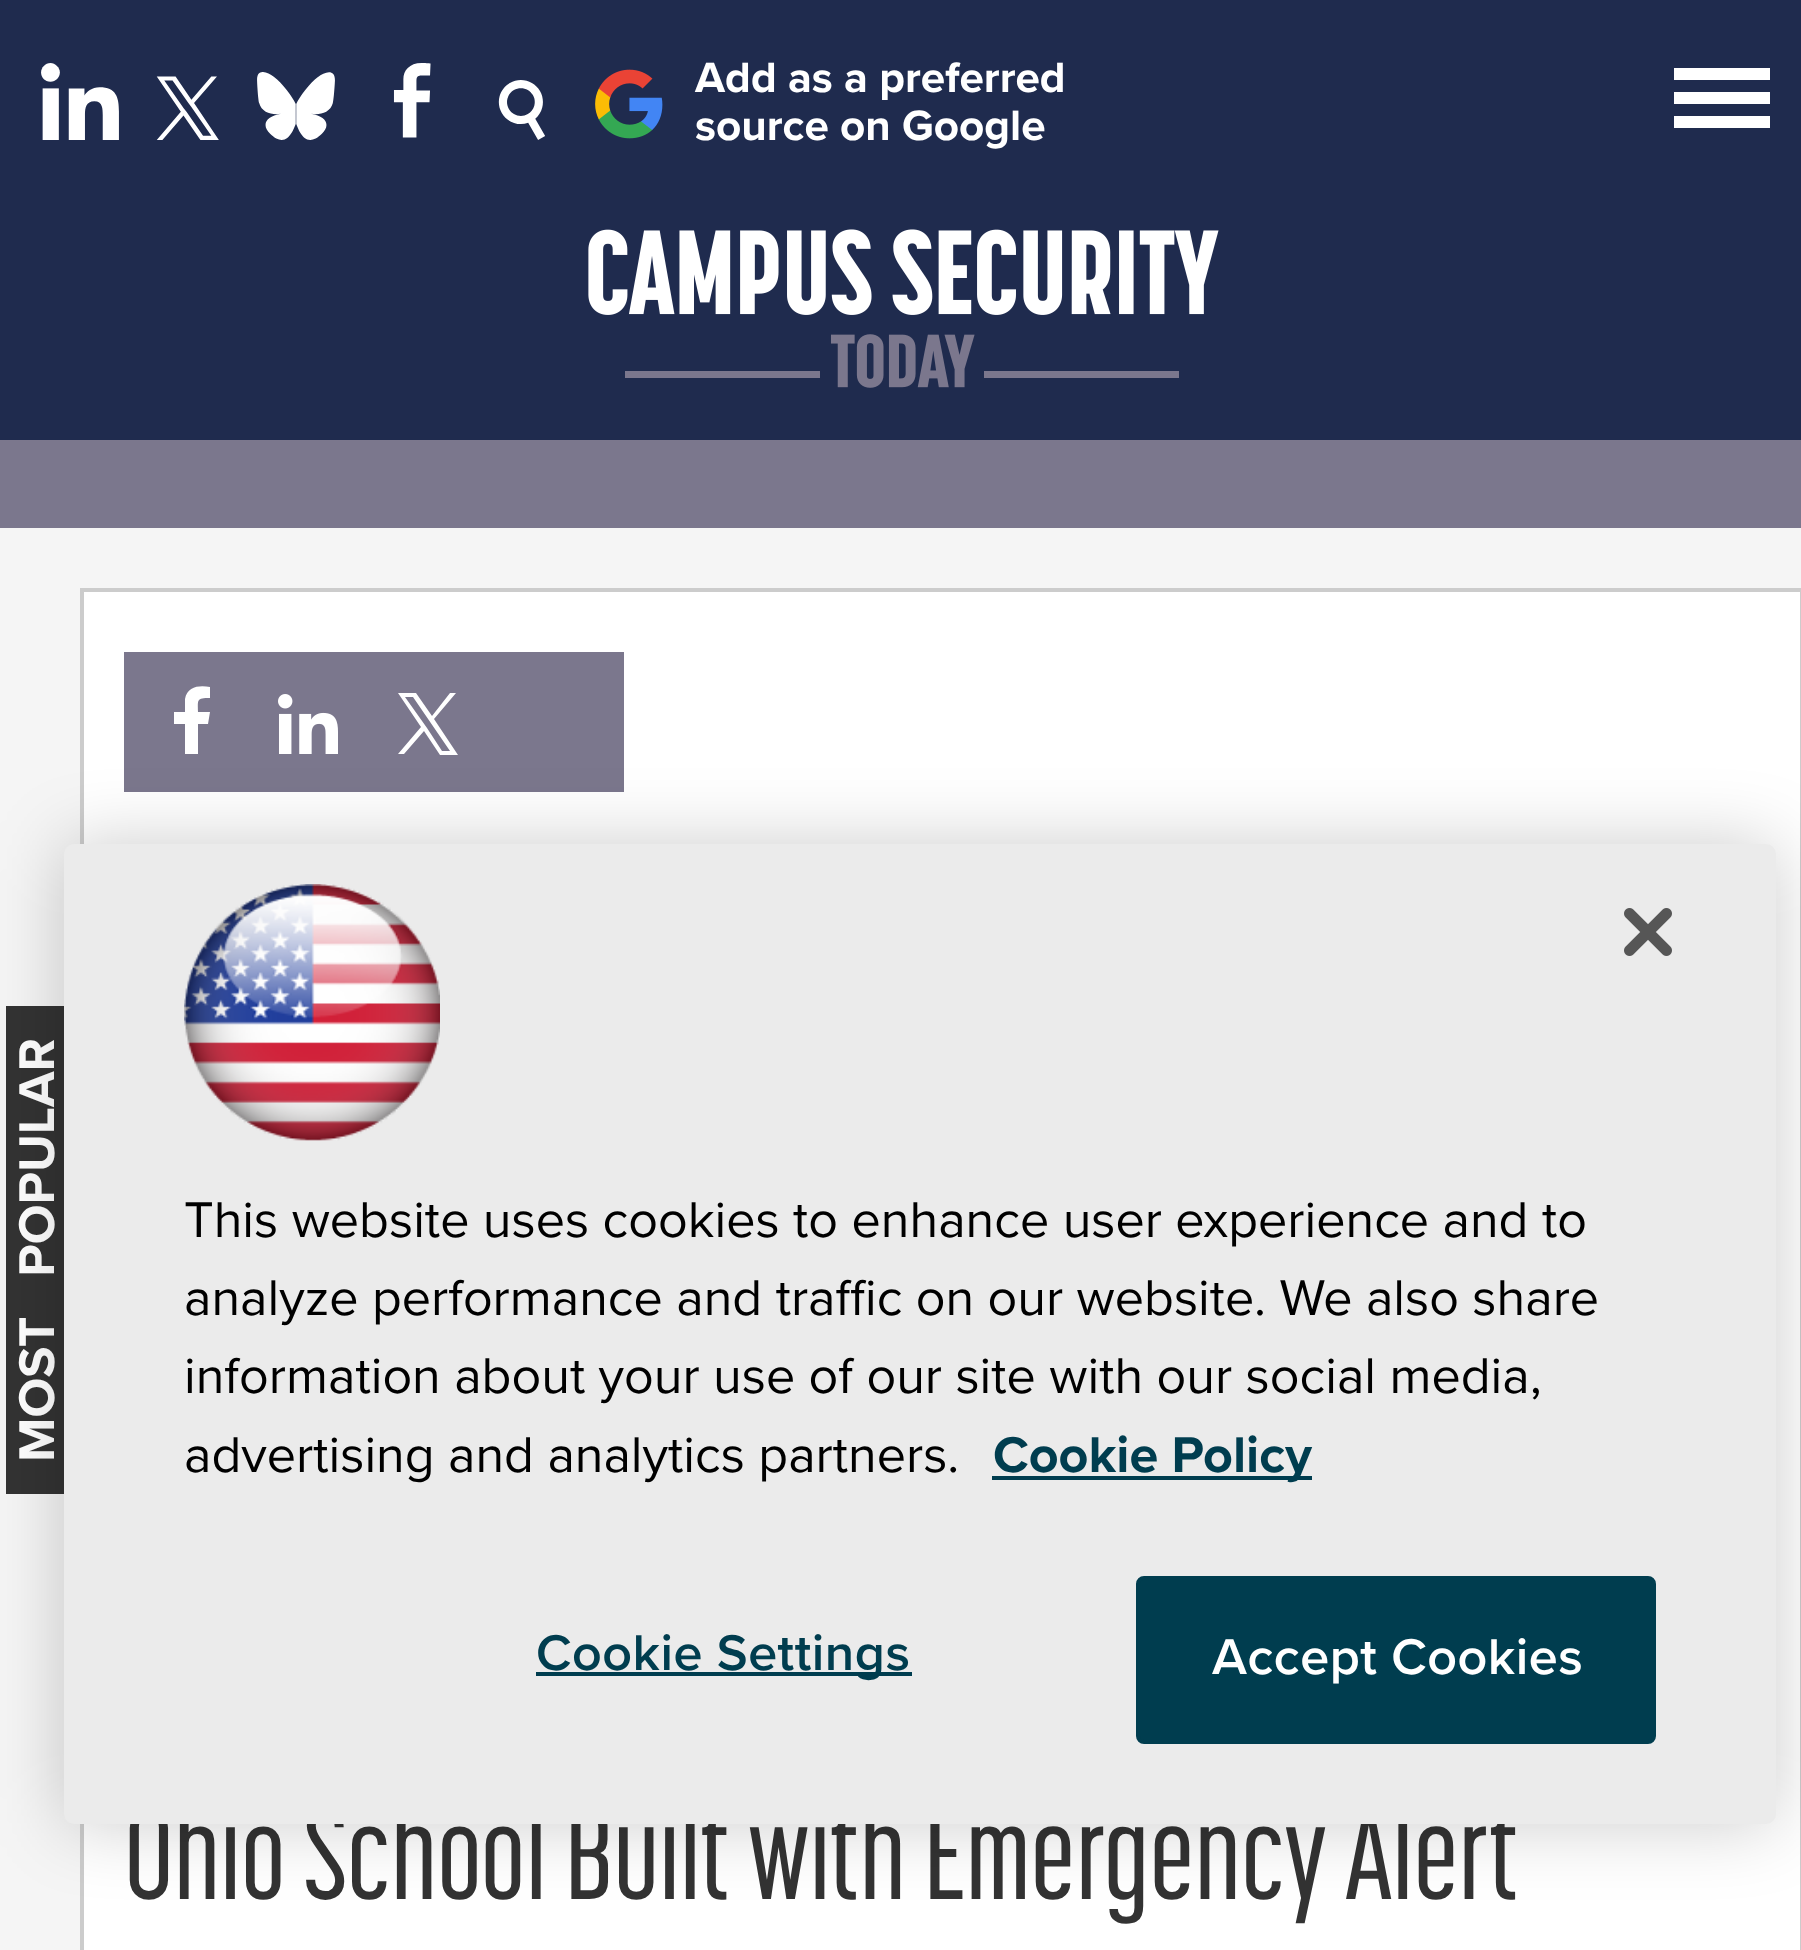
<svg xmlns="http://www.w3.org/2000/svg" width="1801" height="1950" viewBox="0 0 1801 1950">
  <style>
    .t1 { font: bold 44px Proxima Nova; fill: #fff; }
    .t2 { font: bold 52px Proxima Nova; fill: #fff; }
    .t3 { font: 500 128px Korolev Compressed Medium; fill: #333; }
    .t4 { font: 52px Proxima Nova; fill: #000; }
    .t5 { font: bold 52px Proxima Nova; fill: #003d4f; }
    .t6 { font: 600 52px Proxima Nova; letter-spacing: 0.5px; fill: #003d4f; }
    .t7 { font: 600 52px Proxima Nova; letter-spacing: 0.5px; fill: #fff; }
  </style>
  <rect width="100%" height="100%" fill="#f5f5f5"/>
  <rect x="0" y="0" width="1801" height="440" fill="#1f2b4e"/>
  <rect x="0" y="440" width="1801" height="88" fill="#7b778d"/>
  <image x="41" y="63" width="78" height="77" href="images/1.png"/>
  <image x="156" y="76" width="63" height="64" href="images/2.png"/>
  <image x="257" y="72" width="78" height="68" href="images/3.png"/>
  <image x="393" y="63" width="38" height="75" href="images/4.png"/>
  <image x="498" y="80" width="47" height="60" href="images/5.png"/>
  <image x="595" y="69" width="68" height="70" href="images/6.png"/>
  <text x="695" y="92" class="t1">Add as a preferred</text>
  <text x="695" y="140" class="t1">source on Google</text>
  <rect x="1674" y="68" width="96" height="12" fill="#fff"/>
  <rect x="1674" y="92" width="96" height="12" fill="#fff"/>
  <rect x="1674" y="116" width="96" height="12" fill="#fff"/>
  <image x="588" y="229" width="631" height="159" href="images/7.png"/>
  <rect x="6" y="1006" width="58" height="488" fill="#333"/>
  <text x="54" y="1462" transform="rotate(-90 54 1462)" class="t2" xml:space="preserve">MOST   POPULAR</text>
  <rect x="82" y="590" width="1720" height="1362" fill="#fff" stroke="#ccc" stroke-width="4"/>
  <rect x="124" y="652" width="500" height="140" fill="#7b778d"/>
  <path d="M208 724L210 712H198C198 700 196 698 210 698V687C200 685 187 686 185 699V712H174V724H185V754H198V724Z" fill="#fff"/>
  <image x="278" y="694" width="60" height="60" href="images/8.png"/>
  <path d="M434 719L456 693H450L432 716L416 693H398L421 727L398 754H404L424 731L440 755H458ZM427 728L405 697H413L450 751H442Z" fill="#fff"/>
  <text x="124" y="1899" class="t3">Ohio School Built with Emergency Alert</text>
  <rect x="64" y="844" width="1712" height="980" rx="10" fill="#00000033" filter="blur(36px)"/>
  <rect x="64" y="844" width="1712" height="980" rx="10" fill="#ebebeb"/>
  <image x="1624" y="908" width="48" height="48" href="images/9.png"/>
  <image x="184" y="884" width="256" height="257" href="images/10.png"/>
  <text x="184" y="1237" class="t4">This website uses cookies to enhance user experience and to</text>
  <text x="184" y="1315" class="t4">analyze performance and traffic on our website. We also share</text>
  <text x="184" y="1393" class="t4">information about your use of our site with our social media,</text>
  <text x="184" y="1472" class="t4">advertising and analytics partners.</text>
  <rect x="992" y="1476" width="320" height="4" fill="#003d4f"/>
  <text x="993" y="1472" class="t5">Cookie Policy</text>
  <rect x="536" y="1672" width="376" height="4" fill="#003d4f"/>
  <text x="536" y="1670" class="t6">Cookie Settings</text>
  <rect x="1138" y="1578" width="516" height="164" rx="6" fill="#003d4f" stroke="#003d4f" stroke-width="4"/>
  <text x="1212" y="1674" class="t7">Accept Cookies</text>
</svg>
